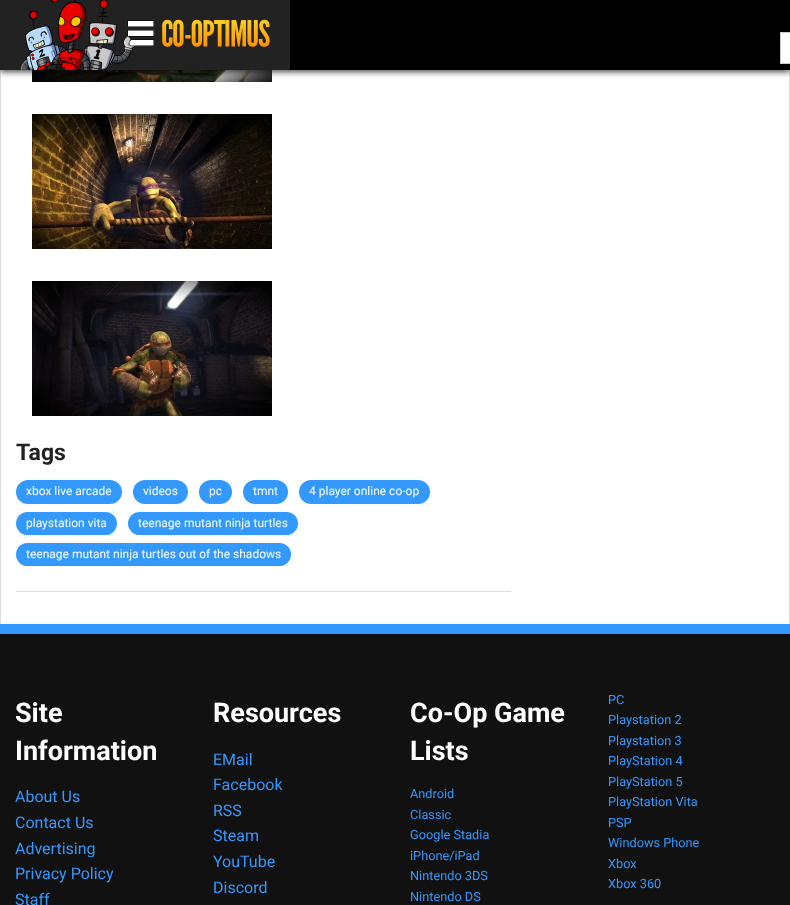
<svg xmlns="http://www.w3.org/2000/svg" width="790" height="905" viewBox="0 0 790 905">
  <style>
    .t1 { font: bold 23px Roboto; fill: #222; }
    .t2 { font: 12px Roboto; fill: #fff; }
    .t3 { font: bold 27px Roboto; fill: #fff; }
    .t4 { font: 16px Roboto; fill: #39f; }
    .t5 { font: 12.75px Roboto; fill: #39f; }
  </style>
  <rect width="100%" height="100%" fill="#fff"/>
  <rect x="789" y="70" width="1" height="554" fill="#ddd"/>
  <rect x="0" y="70" width="1" height="554" fill="#ddd"/>
  <image x="32" y="70" width="240" height="12" href="images/2.png"/>
  <rect x="0" y="2" width="790" height="70" fill="#000000b3" filter="blur(3px)"/>
  <rect x="290" y="0" width="500" height="70" fill="#000"/>
  <rect x="0" y="0" width="290" height="70" fill="#222"/>
  <image x="20" y="0" width="250" height="70" href="images/1.png"/>
  <rect x="780.5" y="32.5" width="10" height="31" fill="#fff" stroke="#ccc"/>
  <image x="32" y="114" width="240" height="135" href="images/3.png"/>
  <image x="32" y="281" width="240" height="135" href="images/4.png"/>
  <text x="16" y="460" class="t1">Tags</text>
  <rect x="16" y="480" width="106" height="24" rx="12" fill="#39f"/>
  <text x="26" y="495" class="t2">xbox live arcade</text>
  <rect x="133" y="480" width="55" height="24" rx="12" fill="#39f"/>
  <text x="143" y="495" class="t2">videos</text>
  <rect x="199" y="480" width="33" height="24" rx="12" fill="#39f"/>
  <text x="209" y="495" class="t2">pc</text>
  <rect x="243" y="480" width="45" height="24" rx="12" fill="#39f"/>
  <text x="253" y="495" class="t2">tmnt</text>
  <rect x="299" y="480" width="131" height="24" rx="12" fill="#39f"/>
  <text x="309" y="495" class="t2">4 player online co-op</text>
  <rect x="16" y="512" width="101" height="23" rx="11.5" fill="#39f"/>
  <text x="26" y="527" class="t2">playstation vita</text>
  <rect x="128" y="512" width="170" height="23" rx="11.5" fill="#39f"/>
  <text x="138" y="527" class="t2">teenage mutant ninja turtles</text>
  <rect x="16" y="543" width="275" height="23" rx="11.5" fill="#39f"/>
  <text x="26" y="558" class="t2">teenage mutant ninja turtles out of the shadows</text>
  <rect x="16" y="591" width="495" height="1" fill="#ddd"/>
  <rect x="0" y="634" width="790" height="271" fill="#111"/>
  <rect x="0" y="624" width="790" height="10" fill="#39f"/>
  <text x="15" y="722" class="t3">Site</text>
  <text x="15" y="760" class="t3">Information</text>
  <text x="15" y="802" class="t4">About Us</text>
  <text x="15" y="828" class="t4">Contact Us</text>
  <text x="15" y="854" class="t4">Advertising</text>
  <text x="15" y="879" class="t4">Privacy Policy</text>
  <text x="15" y="905" class="t4">Staff</text>
  <text x="213" y="722" class="t3">Resources</text>
  <text x="213" y="765" class="t4">EMail</text>
  <text x="213" y="790" class="t4">Facebook</text>
  <text x="213" y="816" class="t4">RSS</text>
  <text x="213" y="841" class="t4">Steam</text>
  <text x="213" y="867" class="t4">YouTube</text>
  <text x="213" y="893" class="t4">Discord</text>
  <text x="410" y="722" class="t3">Co-Op Game</text>
  <text x="410" y="760" class="t3">Lists</text>
  <text x="410" y="798" class="t5">Android</text>
  <text x="410" y="819" class="t5">Classic</text>
  <text x="410" y="839" class="t5">Google Stadia</text>
  <text x="410" y="860" class="t5">iPhone/iPad</text>
  <text x="410" y="880" class="t5">Nintendo 3DS</text>
  <text x="410" y="901" class="t5">Nintendo DS</text>
  <text x="608" y="704" class="t5">PC</text>
  <text x="608" y="724" class="t5">Playstation 2</text>
  <text x="608" y="745" class="t5">Playstation 3</text>
  <text x="608" y="765" class="t5">PlayStation 4</text>
  <text x="608" y="786" class="t5">PlayStation 5</text>
  <text x="608" y="806" class="t5">PlayStation Vita</text>
  <text x="608" y="827" class="t5">PSP</text>
  <text x="608" y="847" class="t5">Windows Phone</text>
  <text x="608" y="868" class="t5">Xbox</text>
  <text x="608" y="888" class="t5">Xbox 360</text>
</svg>
